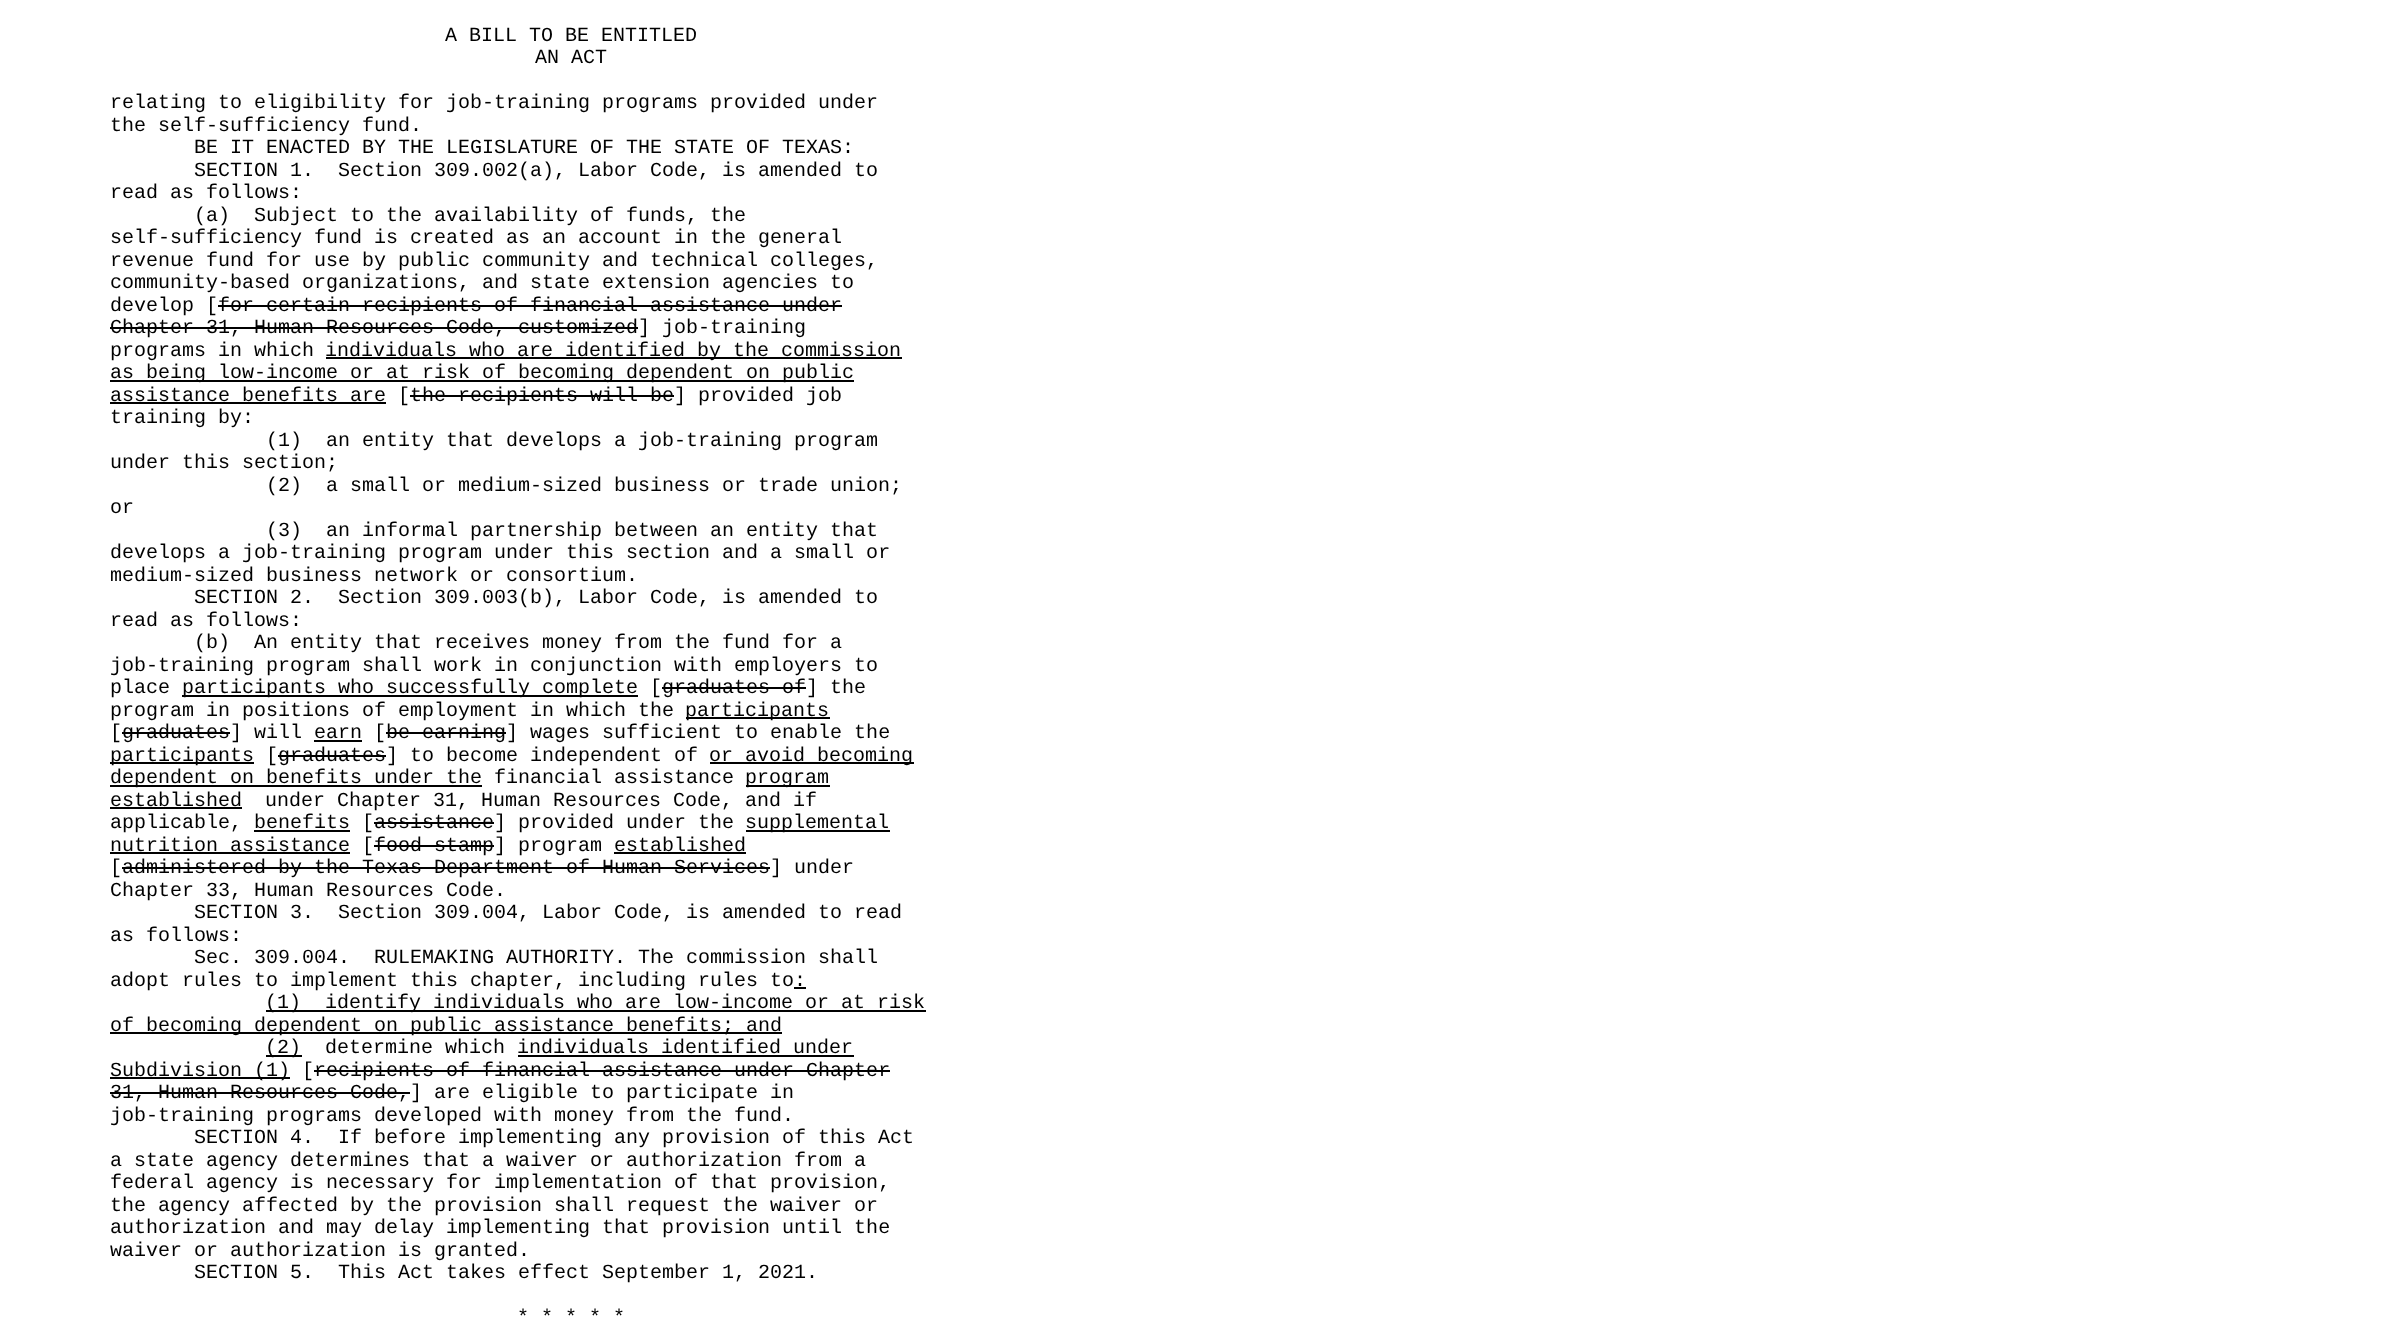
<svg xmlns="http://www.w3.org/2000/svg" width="2388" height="1332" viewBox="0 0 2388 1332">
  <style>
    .t1 { font: 20px Liberation Mono; fill: #000; }
  </style>
  <rect width="100%" height="100%" fill="#fff"/>
  <text x="445" y="41" class="t1">A BILL TO BE ENTITLED</text>
  <text x="535" y="63" class="t1">AN ACT</text>
  <text x="110" y="108" class="t1">relating to eligibility for job-training programs provided under</text>
  <text x="110" y="131" class="t1">the self-sufficiency fund.</text>
  <text x="194" y="153" class="t1">BE IT ENACTED BY THE LEGISLATURE OF THE STATE OF TEXAS:</text>
  <text x="194" y="176" class="t1" xml:space="preserve">SECTION 1.  Section 309.002(a), Labor Code, is amended to</text>
  <text x="110" y="198" class="t1">read as follows:</text>
  <text x="194" y="221" class="t1" xml:space="preserve">(a)  Subject to the availability of funds, the</text>
  <text x="110" y="243" class="t1">self-sufficiency fund is created as an account in the general</text>
  <text x="110" y="266" class="t1">revenue fund for use by public community and technical colleges,</text>
  <text x="110" y="288" class="t1">community-based organizations, and state extension agencies to</text>
  <text x="110" y="311" class="t1">develop [for certain recipients of financial assistance under</text>
  <rect x="218" y="305" width="624" height="2" fill="#000"/>
  <text x="110" y="333" class="t1">Chapter 31, Human Resources Code, customized] job-training</text>
  <rect x="110" y="327" width="528" height="2" fill="#000"/>
  <text x="110" y="356" class="t1">programs in which</text>
  <rect x="326" y="357" width="576" height="2" fill="#000"/>
  <text x="325" y="356" class="t1">individuals who are identified by the commission</text>
  <rect x="110" y="380" width="744" height="2" fill="#000"/>
  <text x="110" y="378" class="t1">as being low-income or at risk of becoming dependent on public</text>
  <rect x="110" y="402" width="276" height="2" fill="#000"/>
  <text x="110" y="401" class="t1">assistance benefits are [the recipients will be] provided job</text>
  <rect x="410" y="395" width="264" height="2" fill="#000"/>
  <text x="110" y="423" class="t1">training by:</text>
  <text x="266" y="446" class="t1" xml:space="preserve">(1)  an entity that develops a job-training program</text>
  <text x="110" y="468" class="t1">under this section;</text>
  <text x="266" y="491" class="t1" xml:space="preserve">(2)  a small or medium-sized business or trade union;</text>
  <text x="110" y="513" class="t1">or</text>
  <text x="266" y="536" class="t1" xml:space="preserve">(3)  an informal partnership between an entity that</text>
  <text x="110" y="558" class="t1">develops a job-training program under this section and a small or</text>
  <text x="110" y="581" class="t1">medium-sized business network or consortium.</text>
  <text x="194" y="603" class="t1" xml:space="preserve">SECTION 2.  Section 309.003(b), Labor Code, is amended to</text>
  <text x="110" y="626" class="t1">read as follows:</text>
  <text x="194" y="648" class="t1" xml:space="preserve">(b)  An entity that receives money from the fund for a</text>
  <text x="110" y="671" class="t1">job-training program shall work in conjunction with employers to</text>
  <text x="110" y="693" class="t1">place</text>
  <rect x="182" y="695" width="456" height="2" fill="#000"/>
  <text x="182" y="693" class="t1">participants who successfully complete [graduates of] the</text>
  <rect x="662" y="687" width="144" height="2" fill="#000"/>
  <text x="110" y="716" class="t1">program in positions of employment in which the</text>
  <rect x="686" y="717" width="144" height="2" fill="#000"/>
  <text x="685" y="716" class="t1">participants</text>
  <text x="110" y="738" class="t1">[graduates] will earn [be earning] wages sufficient to enable the</text>
  <rect x="122" y="732" width="108" height="2" fill="#000"/>
  <rect x="386" y="732" width="120" height="2" fill="#000"/>
  <rect x="314" y="740" width="48" height="2" fill="#000"/>
  <rect x="110" y="762" width="144" height="2" fill="#000"/>
  <text x="110" y="761" class="t1">participants [graduates] to become independent of</text>
  <rect x="710" y="762" width="204" height="2" fill="#000"/>
  <text x="709" y="761" class="t1">or avoid becoming</text>
  <rect x="278" y="755" width="108" height="2" fill="#000"/>
  <rect x="110" y="785" width="372" height="2" fill="#000"/>
  <text x="110" y="783" class="t1">dependent on benefits under the financial assistance</text>
  <rect x="746" y="785" width="84" height="2" fill="#000"/>
  <text x="745" y="783" class="t1">program</text>
  <text x="110" y="806" class="t1">established</text>
  <rect x="110" y="807" width="132" height="2" fill="#000"/>
  <text x="265" y="806" class="t1">under Chapter 31, Human Resources Code, and if</text>
  <text x="110" y="828" class="t1">applicable, benefits [assistance] provided under the</text>
  <rect x="746" y="830" width="144" height="2" fill="#000"/>
  <text x="745" y="828" class="t1">supplemental</text>
  <rect x="374" y="822" width="120" height="2" fill="#000"/>
  <rect x="254" y="830" width="96" height="2" fill="#000"/>
  <rect x="110" y="852" width="240" height="2" fill="#000"/>
  <text x="110" y="851" class="t1">nutrition assistance [food stamp] program established</text>
  <rect x="374" y="845" width="120" height="2" fill="#000"/>
  <rect x="614" y="852" width="132" height="2" fill="#000"/>
  <text x="110" y="873" class="t1">[administered by the Texas Department of Human Services] under</text>
  <rect x="122" y="867" width="648" height="2" fill="#000"/>
  <text x="110" y="896" class="t1">Chapter 33, Human Resources Code.</text>
  <text x="194" y="918" class="t1" xml:space="preserve">SECTION 3.  Section 309.004, Labor Code, is amended to read</text>
  <text x="110" y="941" class="t1">as follows:</text>
  <text x="194" y="963" class="t1" xml:space="preserve">Sec. 309.004.  RULEMAKING AUTHORITY. The commission shall</text>
  <text x="110" y="986" class="t1">adopt rules to implement this chapter, including rules to:</text>
  <rect x="794" y="987" width="12" height="2" fill="#000"/>
  <rect x="266" y="1010" width="660" height="2" fill="#000"/>
  <text x="265" y="1008" class="t1">(1)</text>
  <text x="325" y="1008" class="t1">identify individuals who are low-income or at risk</text>
  <rect x="110" y="1032" width="672" height="2" fill="#000"/>
  <text x="110" y="1031" class="t1">of becoming dependent on public assistance benefits; and</text>
  <rect x="266" y="1055" width="36" height="2" fill="#000"/>
  <text x="265" y="1053" class="t1">(2)</text>
  <text x="325" y="1053" class="t1">determine which individuals identified under</text>
  <rect x="518" y="1055" width="336" height="2" fill="#000"/>
  <rect x="110" y="1077" width="180" height="2" fill="#000"/>
  <text x="110" y="1076" class="t1">Subdivision (1) [recipients of financial assistance under Chapter</text>
  <rect x="314" y="1070" width="576" height="2" fill="#000"/>
  <text x="110" y="1098" class="t1">31, Human Resources Code,] are eligible to participate in</text>
  <rect x="110" y="1092" width="300" height="2" fill="#000"/>
  <text x="110" y="1121" class="t1">job-training programs developed with money from the fund.</text>
  <text x="194" y="1143" class="t1" xml:space="preserve">SECTION 4.  If before implementing any provision of this Act</text>
  <text x="110" y="1166" class="t1">a state agency determines that a waiver or authorization from a</text>
  <text x="110" y="1188" class="t1">federal agency is necessary for implementation of that provision,</text>
  <text x="110" y="1211" class="t1">the agency affected by the provision shall request the waiver or</text>
  <text x="110" y="1233" class="t1">authorization and may delay implementing that provision until the</text>
  <text x="110" y="1256" class="t1">waiver or authorization is granted.</text>
  <text x="194" y="1278" class="t1" xml:space="preserve">SECTION 5.  This Act takes effect September 1, 2021.</text>
  <text x="517" y="1323" class="t1">* * * * *</text>
</svg>
